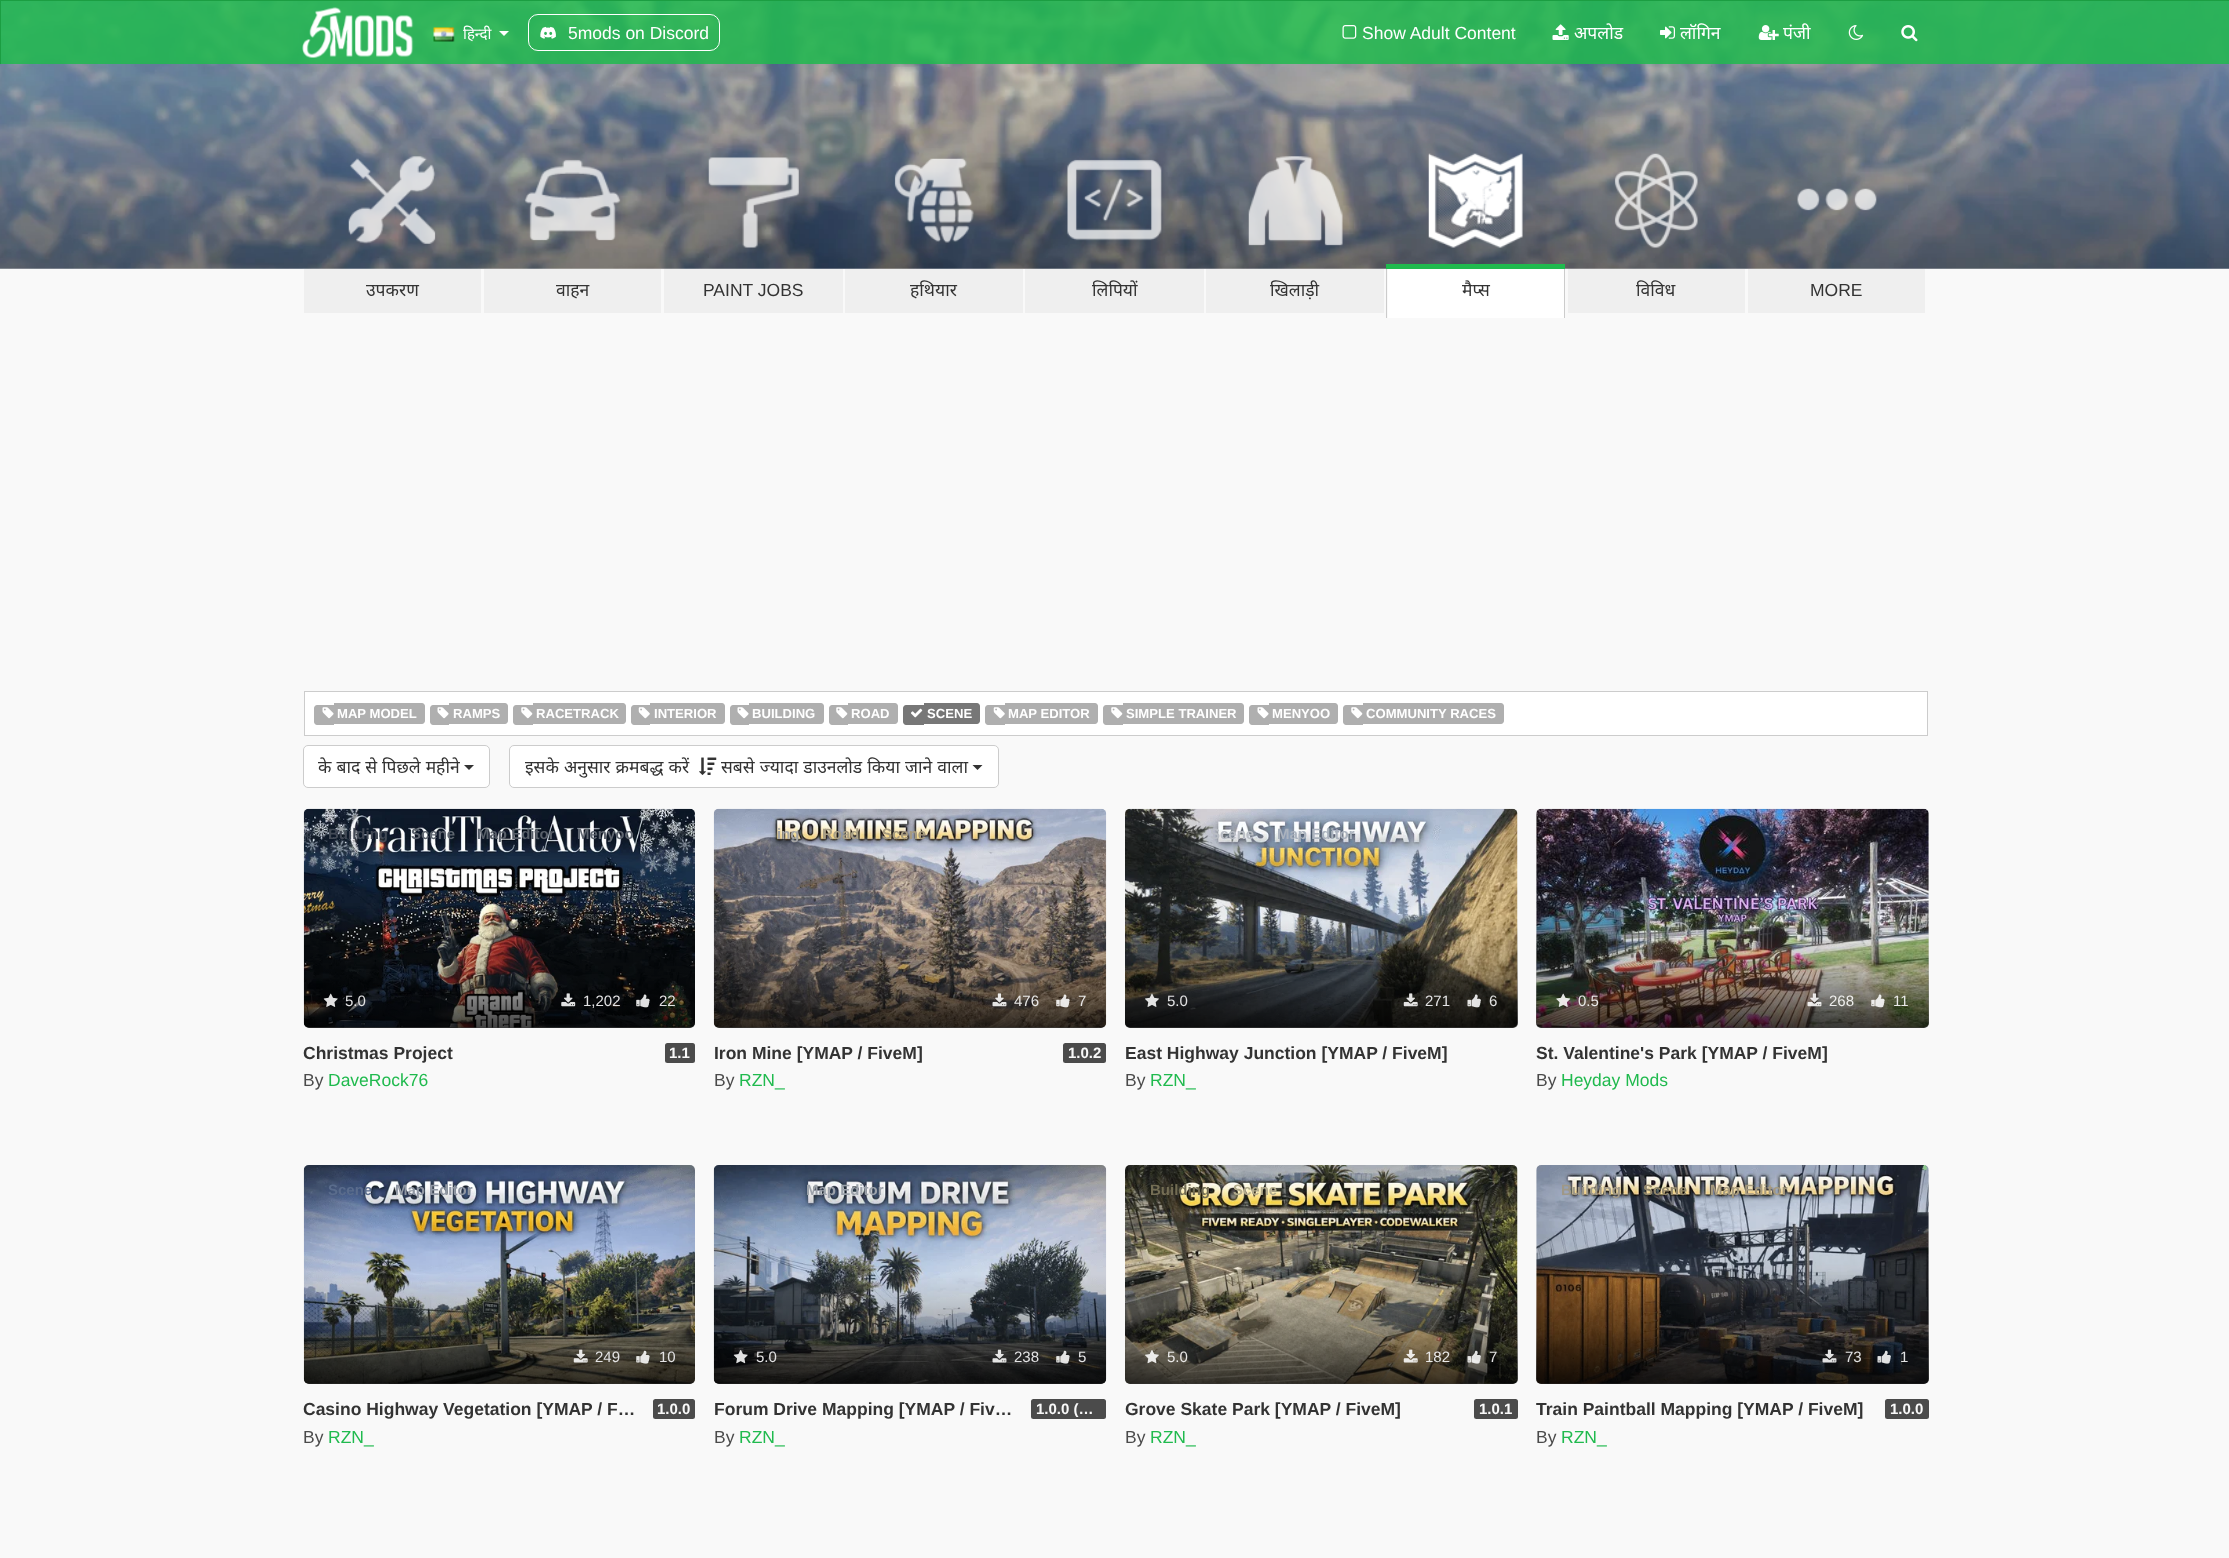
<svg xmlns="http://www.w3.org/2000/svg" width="2229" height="1558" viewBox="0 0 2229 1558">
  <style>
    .t1 { font: 15px Noto Sans; fill: #fff; }
    .t2 { font: 17.5px Liberation Sans; fill: #fff; }
    .t3 { font: 17.5px Noto Sans; fill: #fff; }
    .t4 { font: 17.5px Noto Sans; fill: #333; }
    .t5 { font: 17.5px Liberation Sans; fill: #333; }
    .t6 { font: bold 13.1px Liberation Sans; fill: #fff; }
    .t7 { font: bold 15px Liberation Sans; fill: #424955; }
    .t8 { font: bold 15px Liberation Sans; fill: #5e656f; }
    .t9 { font: bold 15px Liberation Sans; fill: #585f69; }
    .t10 { font: 15px Liberation Sans; fill: #e3e3e4; }
    .t11 { font: bold 17.5px Liberation Sans; fill: #333; }
    .t12 { font: bold 15px Liberation Sans; fill: #f9f9f9; }
    .t13 { font: 17.5px Liberation Sans; fill: #4b4b4b; }
    .t14 { font: 17.5px Liberation Sans; fill: #20ba4e; }
    .t15 { font: bold 15px Liberation Sans; fill: #a6a6a5; }
    .t16 { font: bold 15px Liberation Sans; fill: #a99f85; }
    .t17 { font: bold 15px Liberation Sans; fill: #a69a7e; }
    .t18 { font: 15px Liberation Sans; fill: #e9e8e7; }
    .t19 { font: bold 15px Liberation Sans; fill: #b9bdc4; }
    .t20 { font: bold 15px Liberation Sans; fill: #abb3be; }
    .t21 { font: 15px Liberation Sans; fill: #eeeeed; }
    .t22 { font: bold 15px Liberation Sans; fill: #5a6c8c; }
    .t23 { font: bold 15px Liberation Sans; fill: #9097a3; }
    .t24 { font: bold 15px Liberation Sans; fill: #9ca2aa; }
    .t25 { font: bold 15px Liberation Sans; fill: #736d54; }
    .t26 { font: bold 15px Liberation Sans; fill: #b3ac8d; }
    .t27 { font: bold 15px Liberation Sans; fill: #9f9887; }
    .t28 { font: bold 15px Liberation Sans; fill: #91866a; }
  </style>
  <defs>
    <linearGradient id="g1" gradientUnits="userSpaceOnUse" x1="499" y1="809" x2="499" y2="1028"><stop offset="0.5" stop-color="#000" stop-opacity="0"/><stop offset="0.75" stop-color="#000" stop-opacity="0.25"/><stop offset="1" stop-color="#000" stop-opacity="0.75"/></linearGradient>
    <linearGradient id="g2" gradientUnits="userSpaceOnUse" x1="910" y1="809" x2="910" y2="1028"><stop offset="0.5" stop-color="#000" stop-opacity="0"/><stop offset="0.75" stop-color="#000" stop-opacity="0.25"/><stop offset="1" stop-color="#000" stop-opacity="0.75"/></linearGradient>
    <linearGradient id="g3" gradientUnits="userSpaceOnUse" x1="1321" y1="809" x2="1321" y2="1028"><stop offset="0.5" stop-color="#000" stop-opacity="0"/><stop offset="0.75" stop-color="#000" stop-opacity="0.25"/><stop offset="1" stop-color="#000" stop-opacity="0.75"/></linearGradient>
    <linearGradient id="g4" gradientUnits="userSpaceOnUse" x1="1733" y1="809" x2="1733" y2="1028"><stop offset="0.5" stop-color="#000" stop-opacity="0"/><stop offset="0.75" stop-color="#000" stop-opacity="0.25"/><stop offset="1" stop-color="#000" stop-opacity="0.75"/></linearGradient>
    <linearGradient id="g5" gradientUnits="userSpaceOnUse" x1="499" y1="1165" x2="499" y2="1384"><stop offset="0.5" stop-color="#000" stop-opacity="0"/><stop offset="0.75" stop-color="#000" stop-opacity="0.25"/><stop offset="1" stop-color="#000" stop-opacity="0.75"/></linearGradient>
    <linearGradient id="g6" gradientUnits="userSpaceOnUse" x1="910" y1="1165" x2="910" y2="1384"><stop offset="0.5" stop-color="#000" stop-opacity="0"/><stop offset="0.75" stop-color="#000" stop-opacity="0.25"/><stop offset="1" stop-color="#000" stop-opacity="0.75"/></linearGradient>
    <linearGradient id="g7" gradientUnits="userSpaceOnUse" x1="1321" y1="1165" x2="1321" y2="1384"><stop offset="0.5" stop-color="#000" stop-opacity="0"/><stop offset="0.75" stop-color="#000" stop-opacity="0.25"/><stop offset="1" stop-color="#000" stop-opacity="0.75"/></linearGradient>
    <linearGradient id="g8" gradientUnits="userSpaceOnUse" x1="1733" y1="1165" x2="1733" y2="1384"><stop offset="0.5" stop-color="#000" stop-opacity="0"/><stop offset="0.75" stop-color="#000" stop-opacity="0.25"/><stop offset="1" stop-color="#000" stop-opacity="0.75"/></linearGradient>
  </defs>
  <rect width="100%" height="100%" fill="#f9f9f9"/>
  <image x="0" y="1" width="2229" height="268" href="images/10.png"/>
  <rect x="1" y="1" width="2228" height="63" fill="#20ba4ed9"/>
  <rect x="0" y="0" width="2229" height="1" fill="#1b9e42"/>
  <rect x="0" y="0" width="1" height="64" fill="#1b9e42"/>
  <image x="302" y="7" width="112" height="51" href="images/1.png"/>
  <image x="433" y="27" width="22" height="15" href="images/2.png"/>
  <text x="463" y="39" class="t1">हिन्दी</text>
  <path d="M499 31H509L504 36Z" fill="#fff"/>
  <rect x="528.5" y="14.5" width="191" height="36" rx="9.5" fill="none" stroke="#fff"/>
  <image x="540" y="26" width="16" height="13" href="images/3.png"/>
  <text x="568" y="39" class="t2">5mods on Discord</text>
  <image x="1342" y="25" width="15" height="14" href="images/4.png"/>
  <text x="1362" y="39" class="t2">Show Adult Content</text>
  <image x="1552" y="24" width="17" height="16" href="images/5.png"/>
  <text x="1574" y="39" class="t3">अपलोड</text>
  <image x="1660" y="26" width="15" height="13" href="images/6.png"/>
  <text x="1680" y="39" class="t3">लॉगिन</text>
  <image x="1758" y="25" width="21" height="15" href="images/7.png"/>
  <text x="1783" y="39" class="t3">पंजी</text>
  <image x="1848" y="25" width="16" height="15" href="images/8.png"/>
  <image x="1901" y="25" width="17" height="17" href="images/9.png"/>
  <image x="348" y="156" width="88" height="88" href="images/11.png"/>
  <rect x="304" y="269" width="177" height="44" fill="#efefef"/>
  <text x="366" y="296" class="t4">उपकरण</text>
  <image x="524" y="159" width="97" height="82" href="images/12.png"/>
  <rect x="484" y="269" width="177" height="44" fill="#efefef"/>
  <text x="556" y="296" class="t4">वाहन</text>
  <image x="708" y="157" width="91" height="91" href="images/13.png"/>
  <rect x="664" y="269" width="179" height="44" fill="#efefef"/>
  <text x="703" y="296" class="t5">PAINT JOBS</text>
  <image x="894" y="158" width="80" height="85" href="images/14.png"/>
  <rect x="845" y="269" width="178" height="44" fill="#efefef"/>
  <text x="910" y="296" class="t4">हथियार</text>
  <image x="1067" y="159" width="95" height="82" href="images/15.png"/>
  <rect x="1025" y="269" width="179" height="44" fill="#efefef"/>
  <text x="1092" y="296" class="t4">लिपियों</text>
  <image x="1248" y="156" width="95" height="90" href="images/16.png"/>
  <rect x="1206" y="269" width="178" height="44" fill="#efefef"/>
  <text x="1270" y="296" class="t4">खिलाड़ी</text>
  <image x="1428" y="153" width="95" height="95" href="images/17.png"/>
  <rect x="1386" y="264" width="179" height="5" fill="#20ba4e"/>
  <rect x="1564" y="269" width="1" height="49" fill="#ccc"/>
  <rect x="1386" y="269" width="1" height="49" fill="#ccc"/>
  <rect x="1388" y="269" width="176" height="49" fill="#fff"/>
  <text x="1462" y="296" class="t4">मैप्स</text>
  <image x="1614" y="153" width="84" height="95" href="images/18.png"/>
  <rect x="1568" y="269" width="177" height="44" fill="#efefef"/>
  <text x="1636" y="296" class="t4">विविध</text>
  <image x="1797" y="188" width="80" height="23" href="images/19.png"/>
  <rect x="1748" y="269" width="177" height="44" fill="#efefef"/>
  <text x="1810" y="296" class="t5">MORE</text>
  <rect x="304.5" y="691.5" width="1623" height="44" fill="#fff" stroke="#ccc"/>
  <path d="M317 705H334V725H317C315.5 725 314 723.5 314 722V708C314 706.5 315.5 705 317 705Z" fill="#afafaf"/>
  <path d="M334 703H422C423.5 703 425 704.5 425 706V721C425 722.5 423.5 724 422 724H334Z" fill="#afafaf"/>
  <image x="322" y="707" width="12" height="12" href="images/20.png"/>
  <text x="337" y="718" class="t6">MAP MODEL</text>
  <path d="M433 705H449V725H433C431.5 725 430 723.5 430 722V708C430 706.5 431.5 705 433 705Z" fill="#afafaf"/>
  <path d="M449 703H505C506.5 703 508 704.5 508 706V721C508 722.5 506.5 724 505 724H449Z" fill="#afafaf"/>
  <image x="437" y="707" width="12" height="12" href="images/20.png"/>
  <text x="453" y="718" class="t6">RAMPS</text>
  <path d="M516 705H533V725H516C514.5 725 513 723.5 513 722V708C513 706.5 514.5 705 516 705Z" fill="#afafaf"/>
  <path d="M533 703H623C624.5 703 626 704.5 626 706V721C626 722.5 624.5 724 623 724H533Z" fill="#afafaf"/>
  <image x="521" y="707" width="12" height="12" href="images/21.png"/>
  <text x="536" y="718" class="t6">RACETRACK</text>
  <path d="M634 705H650V725H634C632.5 725 631 723.5 631 722V708C631 706.5 632.5 705 634 705Z" fill="#afafaf"/>
  <path d="M650 703H722C723.5 703 725 704.5 725 706V721C725 722.5 723.5 724 722 724H650Z" fill="#afafaf"/>
  <image x="638" y="707" width="12" height="12" href="images/22.png"/>
  <text x="654" y="718" class="t6">INTERIOR</text>
  <path d="M733 705H749V725H733C731.5 725 730 723.5 730 722V708C730 706.5 731.5 705 733 705Z" fill="#afafaf"/>
  <path d="M749 703H821C822.5 703 824 704.5 824 706V721C824 722.5 822.5 724 821 724H749Z" fill="#afafaf"/>
  <image x="737" y="707" width="12" height="12" href="images/20.png"/>
  <text x="752" y="718" class="t6">BUILDING</text>
  <path d="M832 705H848V725H832C830.5 725 829 723.5 829 722V708C829 706.5 830.5 705 832 705Z" fill="#afafaf"/>
  <path d="M848 703H895C896.5 703 898 704.5 898 706V721C898 722.5 896.5 724 895 724H848Z" fill="#afafaf"/>
  <image x="836" y="707" width="12" height="12" href="images/21.png"/>
  <text x="851" y="718" class="t6">ROAD</text>
  <path d="M906 705H924V725H906C904.5 725 903 723.5 903 722V708C903 706.5 904.5 705 906 705Z" fill="#777"/>
  <path d="M924 703H977C978.5 703 980 704.5 980 706V721C980 722.5 978.5 724 977 724H924Z" fill="#777"/>
  <image x="911" y="708" width="12" height="10" href="images/23.png"/>
  <text x="927" y="718" class="t6">SCENE</text>
  <path d="M988 705H1005V725H988C986.5 725 985 723.5 985 722V708C985 706.5 986.5 705 988 705Z" fill="#afafaf"/>
  <path d="M1005 703H1095C1096.5 703 1098 704.5 1098 706V721C1098 722.5 1096.5 724 1095 724H1005Z" fill="#afafaf"/>
  <image x="993" y="707" width="12" height="12" href="images/22.png"/>
  <text x="1008" y="718" class="t6">MAP EDITOR</text>
  <path d="M1106 705H1123V725H1106C1104.5 725 1103 723.5 1103 722V708C1103 706.5 1104.5 705 1106 705Z" fill="#afafaf"/>
  <path d="M1123 703H1241C1242.5 703 1244 704.5 1244 706V721C1244 722.5 1242.5 724 1241 724H1123Z" fill="#afafaf"/>
  <image x="1111" y="707" width="12" height="12" href="images/21.png"/>
  <text x="1126" y="718" class="t6">SIMPLE TRAINER</text>
  <path d="M1252 705H1269V725H1252C1250.5 725 1249 723.5 1249 722V708C1249 706.5 1250.5 705 1252 705Z" fill="#afafaf"/>
  <path d="M1269 703H1335C1336.5 703 1338 704.5 1338 706V721C1338 722.5 1336.5 724 1335 724H1269Z" fill="#afafaf"/>
  <image x="1257" y="707" width="12" height="12" href="images/20.png"/>
  <text x="1272" y="718" class="t6">MENYOO</text>
  <path d="M1346 705H1363V725H1346C1344.5 725 1343 723.5 1343 722V708C1343 706.5 1344.5 705 1346 705Z" fill="#afafaf"/>
  <path d="M1363 703H1501C1502.5 703 1504 704.5 1504 706V721C1504 722.5 1502.5 724 1501 724H1363Z" fill="#afafaf"/>
  <image x="1351" y="707" width="12" height="12" href="images/21.png"/>
  <text x="1366" y="718" class="t6">COMMUNITY RACES</text>
  <rect x="303.5" y="745.5" width="186" height="42" rx="4.5" fill="#fff" stroke="#ccc"/>
  <text x="318" y="773" word-spacing="0.5" class="t4">के बाद से</text>
  <text x="382" y="773" word-spacing="0.5" class="t4">पिछले महीने</text>
  <path d="M464 765H474L469 770Z" fill="#333"/>
  <rect x="509.5" y="745.5" width="489" height="42" rx="4.5" fill="#fff" stroke="#ccc"/>
  <text x="525" y="773" word-spacing="0.5" class="t4">इसके अनुसार क्रमबद्ध करें</text>
  <image x="699" y="757" width="18" height="18" href="images/24.png"/>
  <text x="721" y="773" word-spacing="0.5" class="t4">सबसे ज्यादा डाउनलोड किया जाने वाला</text>
  <path d="M972.5 765H982.5L977.5 770Z" fill="#333"/>
  <image x="303" y="808" width="392" height="220" href="images/25.png"/>
  <rect x="304" y="809" width="391" height="219" rx="5" fill="url(#g1)"/>
  <text x="328" y="839" class="t7">Building</text>
  <text x="411" y="839" class="t8">Scene</text>
  <text x="477" y="839" class="t9">Map Editor</text>
  <text x="577" y="839" class="t8">Menyoo</text>
  <image x="323" y="993" width="15" height="14" href="images/26.png"/>
  <text x="345" y="1006" class="t10">5.0</text>
  <image x="561" y="993" width="15" height="14" href="images/27.png"/>
  <text x="583" y="1006" class="t10">1,202</text>
  <image x="636" y="994" width="14" height="14" href="images/28.png"/>
  <text x="659" y="1006" class="t10">22</text>
  <text x="303" y="1059" class="t11">Christmas Project</text>
  <rect x="665" y="1043" width="30" height="20" rx="2.5" fill="#4b4b4b"/>
  <text x="669" y="1058" class="t12">1.1</text>
  <text x="303" y="1086" class="t13">By</text>
  <text x="328" y="1086" class="t14">DaveRock76</text>
  <image x="713" y="808" width="394" height="220" href="images/29.png"/>
  <rect x="714" y="809" width="392" height="219" rx="5" fill="url(#g2)"/>
  <text x="777" y="839" class="t15">ing</text>
  <text x="822" y="839" class="t16">Road</text>
  <text x="882" y="839" class="t17">Scene</text>
  <image x="992" y="993" width="15" height="14" href="images/30.png"/>
  <text x="1014" y="1006" class="t18">476</text>
  <image x="1056" y="994" width="14" height="14" href="images/31.png"/>
  <text x="1078" y="1006" class="t18">7</text>
  <text x="714" y="1059" class="t11">Iron Mine [YMAP / FiveM]</text>
  <rect x="1063" y="1043" width="43" height="20" rx="2.5" fill="#4b4b4b"/>
  <text x="1068" y="1058" class="t12">1.0.2</text>
  <text x="714" y="1086" class="t13">By</text>
  <text x="739" y="1086" class="t14">RZN_</text>
  <image x="1125" y="808" width="393" height="220" href="images/32.png"/>
  <rect x="1125" y="809" width="393" height="219" rx="5" fill="url(#g3)"/>
  <text x="1210" y="839" class="t19">Scene</text>
  <text x="1277" y="839" class="t20">Map Editor</text>
  <image x="1145" y="993" width="14" height="14" href="images/33.png"/>
  <text x="1167" y="1006" class="t10">5.0</text>
  <image x="1403" y="993" width="15" height="14" href="images/34.png"/>
  <text x="1425" y="1006" class="t10">271</text>
  <image x="1467" y="994" width="14" height="14" href="images/35.png"/>
  <text x="1489" y="1006" class="t10">6</text>
  <text x="1125" y="1059" class="t11">East Highway Junction [YMAP / FiveM]</text>
  <text x="1125" y="1086" class="t13">By</text>
  <text x="1150" y="1086" class="t14">RZN_</text>
  <image x="1536" y="808" width="393" height="220" href="images/36.png"/>
  <rect x="1536" y="809" width="393" height="219" rx="5" fill="url(#g4)"/>
  <image x="1556" y="993" width="15" height="14" href="images/37.png"/>
  <text x="1578" y="1006" class="t18">0.5</text>
  <image x="1807" y="993" width="15" height="14" href="images/38.png"/>
  <text x="1829" y="1006" class="t21">268</text>
  <image x="1871" y="994" width="14" height="14" href="images/39.png"/>
  <text x="1893" y="1006" class="t18">11</text>
  <text x="1536" y="1059" class="t11">St. Valentine's Park [YMAP / FiveM]</text>
  <text x="1536" y="1086" class="t13">By</text>
  <text x="1561" y="1086" class="t14">Heyday Mods</text>
  <image x="303" y="1165" width="392" height="219" href="images/40.png"/>
  <rect x="304" y="1165" width="391" height="219" rx="5" fill="url(#g5)"/>
  <text x="328" y="1195" class="t22">Scene</text>
  <text x="395" y="1195" class="t23">Map Editor</text>
  <image x="573" y="1349" width="15" height="14" href="images/41.png"/>
  <text x="595" y="1362" class="t10">249</text>
  <image x="636" y="1350" width="14" height="14" href="images/42.png"/>
  <text x="659" y="1362" class="t10">10</text>
  <text x="303" y="1415" class="t11">Casino Highway Vegetation [YMAP / F…</text>
  <rect x="653" y="1399" width="42" height="20" rx="2.5" fill="#4b4b4b"/>
  <text x="657" y="1414" class="t12">1.0.0</text>
  <text x="303" y="1443" class="t13">By</text>
  <text x="328" y="1443" class="t14">RZN_</text>
  <image x="713" y="1165" width="394" height="219" href="images/43.png"/>
  <rect x="714" y="1165" width="392" height="219" rx="5" fill="url(#g6)"/>
  <text x="806" y="1195" class="t24">Map Editor</text>
  <image x="733" y="1350" width="15" height="14" href="images/44.png"/>
  <text x="756" y="1362" class="t10">5.0</text>
  <image x="992" y="1349" width="15" height="14" href="images/45.png"/>
  <text x="1014" y="1362" class="t10">238</text>
  <image x="1056" y="1350" width="14" height="14" href="images/46.png"/>
  <text x="1078" y="1362" class="t10">5</text>
  <text x="714" y="1415" class="t11">Forum Drive Mapping [YMAP / Fiv…</text>
  <rect x="1031" y="1399" width="75" height="20" rx="2.5" fill="#4b4b4b"/>
  <text x="1036" y="1414" class="t12">1.0.0 (…</text>
  <text x="714" y="1443" class="t13">By</text>
  <text x="739" y="1443" class="t14">RZN_</text>
  <image x="1125" y="1165" width="393" height="219" href="images/47.png"/>
  <rect x="1125" y="1165" width="393" height="219" rx="5" fill="url(#g7)"/>
  <text x="1150" y="1195" class="t25">Building</text>
  <text x="1233" y="1195" class="t26">Scene</text>
  <image x="1145" y="1350" width="14" height="14" href="images/48.png"/>
  <text x="1167" y="1362" class="t18">5.0</text>
  <image x="1403" y="1349" width="15" height="14" href="images/49.png"/>
  <text x="1425" y="1362" class="t18">182</text>
  <image x="1467" y="1350" width="14" height="14" href="images/50.png"/>
  <text x="1489" y="1362" class="t10">7</text>
  <text x="1125" y="1415" class="t11">Grove Skate Park [YMAP / FiveM]</text>
  <rect x="1474" y="1399" width="44" height="20" rx="2.5" fill="#4b4b4b"/>
  <text x="1479" y="1414" class="t12">1.0.1</text>
  <text x="1125" y="1443" class="t13">By</text>
  <text x="1150" y="1443" class="t14">RZN_</text>
  <image x="1536" y="1165" width="393" height="219" href="images/51.png"/>
  <rect x="1536" y="1165" width="393" height="219" rx="5" fill="url(#g8)"/>
  <text x="1561" y="1195" class="t27">Building</text>
  <text x="1643" y="1195" class="t28">Scene</text>
  <text x="1710" y="1195" class="t17">Map Editor</text>
  <image x="1822" y="1349" width="15" height="14" href="images/52.png"/>
  <text x="1845" y="1362" class="t10">73</text>
  <image x="1877" y="1350" width="14" height="14" href="images/53.png"/>
  <text x="1900" y="1362" class="t10">1</text>
  <text x="1536" y="1415" class="t11">Train Paintball Mapping [YMAP / FiveM]</text>
  <rect x="1885" y="1399" width="44" height="20" rx="2.5" fill="#4b4b4b"/>
  <text x="1890" y="1414" class="t12">1.0.0</text>
  <text x="1536" y="1443" class="t13">By</text>
  <text x="1561" y="1443" class="t14">RZN_</text>
</svg>
